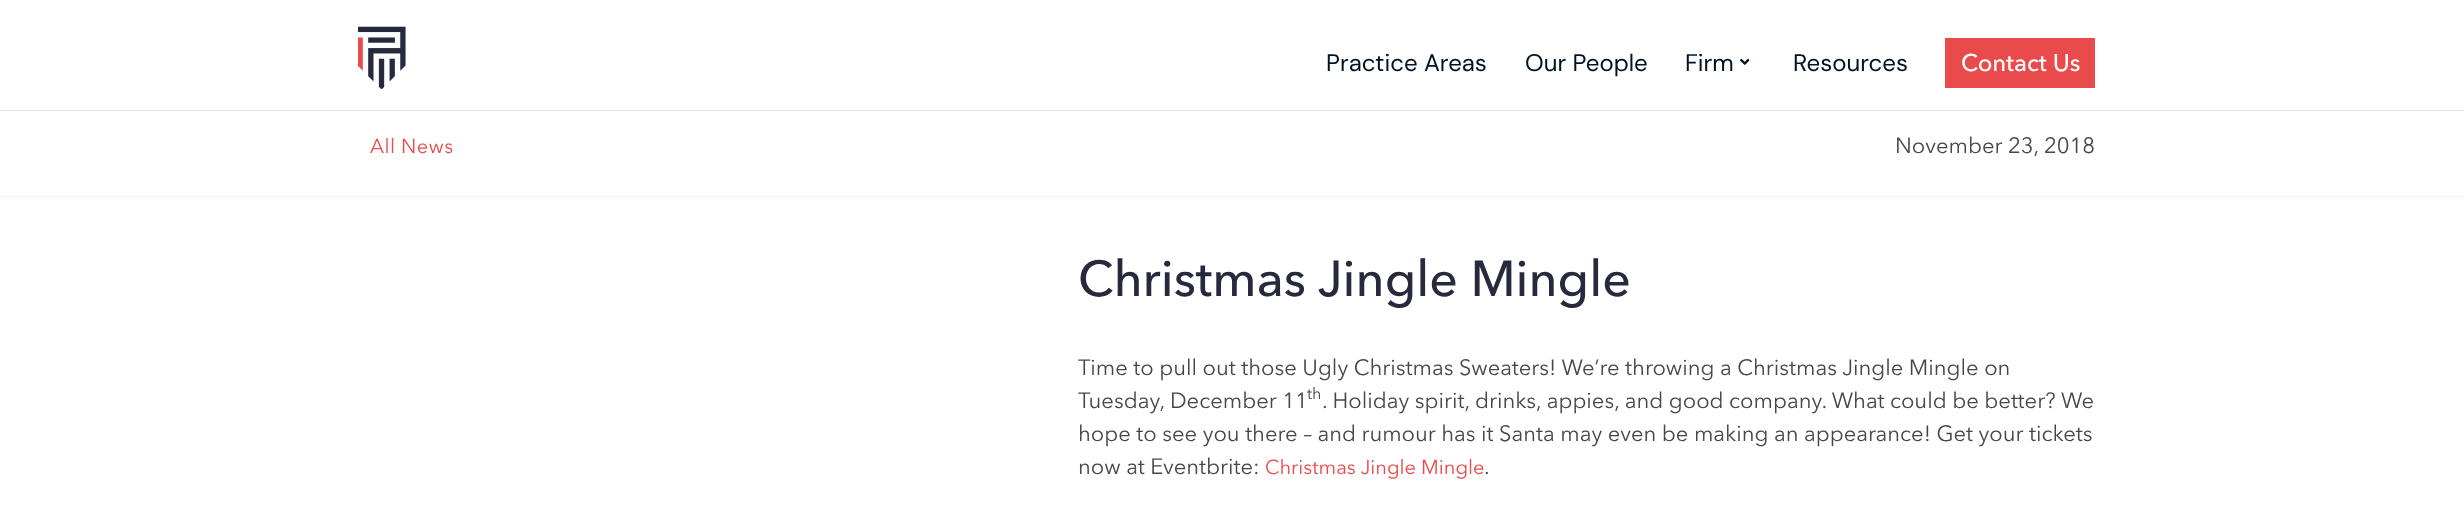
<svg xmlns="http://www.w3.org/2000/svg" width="2464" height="522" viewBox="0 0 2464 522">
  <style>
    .t1 { font: 24px DM Sans; fill: #001323; }
    .t2 { font: 500 24px Avenir Next; fill: #fff; }
    .t3 { font: 20px Avenir Next; letter-spacing: 0.5px; fill: #e94b4c; }
    .t4 { font: 22px Avenir Next; fill: #45474c; }
    .t5 { font: 500 50px Avenir Next; fill: #27293d; }
    .t6 { font: 16px Avenir Next; fill: #45474c; }
    .t7 { font: 20px Avenir Next; fill: #e94b4c; }
  </style>
  <rect width="100%" height="100%" fill="#fff"/>
  <rect x="0" y="110" width="2464" height="1" fill="#e6e7e1"/>
  <image x="358" y="26" width="48" height="63" href="images/1.png"/>
  <text x="1326" y="71" class="t1">Practice Areas</text>
  <text x="1525" y="71" class="t1">Our People</text>
  <text x="1685" y="71" class="t1">Firm</text>
  <image x="1740" y="58" width="10" height="7" href="images/2.png"/>
  <text x="1793" y="71" class="t1">Resources</text>
  <rect x="1945" y="38" width="150" height="50" fill="#e94b4c"/>
  <text x="1961" y="71" class="t2">Contact Us</text>
  <rect x="0" y="196" width="2464" height="1" fill="#f2f2f0"/>
  <text x="370" y="153" class="t3">All News</text>
  <text x="1895" y="153" class="t4">November 23, 2018</text>
  <text x="1078" y="296" class="t5">Christmas Jingle Mingle</text>
  <text x="1078" y="375" class="t4">Time to pull out those Ugly Christmas Sweaters! We’re throwing a Christmas Jingle Mingle on</text>
  <text x="1078" y="408" class="t4">Tuesday, December 11</text>
  <text x="1307" y="399" class="t6">th</text>
  <text x="1322" y="408" class="t4">. Holiday spirit, drinks, appies, and good company. What could be better? We</text>
  <text x="1078" y="441" class="t4">hope to see you there – and rumour has it Santa may even be making an appearance! Get your tickets</text>
  <text x="1078" y="474" class="t4">now at Eventbrite:</text>
  <text x="1265" y="474" class="t7">Christmas Jingle Mingle</text>
  <text x="1484" y="474" class="t4">.</text>
</svg>
